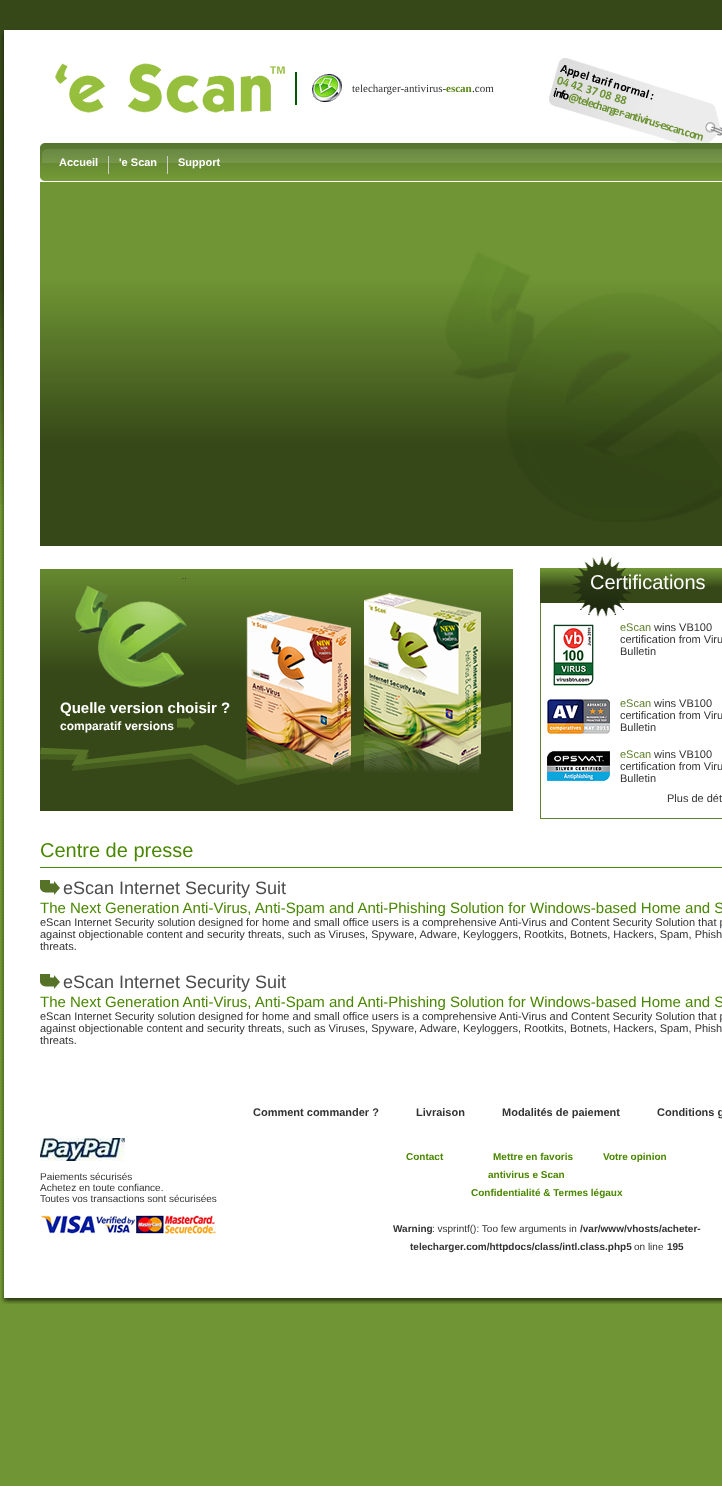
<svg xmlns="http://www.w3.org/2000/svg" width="722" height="1486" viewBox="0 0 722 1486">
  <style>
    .t1 { font: 11px Liberation Serif; fill: #333; }
    .t2 { font: bold 11px Liberation Serif; fill: #588514; }
    .t3 { font: bold 11px Liberation Sans; fill: #fff; }
    .t4 { font: bold 15px Liberation Sans; fill: #fff; }
    .t5 { font: bold 12px Liberation Sans; fill: #fff; }
    .t6 { font: 20px Liberation Sans; fill: #fff; }
    .t7 { font: 11px Liberation Sans; fill: #60812d; }
    .t8 { font: 11px Liberation Sans; fill: #333; }
    .t9 { font: 20px Liberation Sans; fill: #4a8700; }
    .t10 { font: 18px Liberation Sans; fill: #4c4c4c; }
    .t11 { font: 15px Liberation Sans; fill: #4a8700; }
    .t12 { font: bold 11px Liberation Sans; fill: #333; }
    .t13 { font: 10px Liberation Sans; fill: #333; }
    .t14 { font: bold 10px Liberation Sans; fill: #4a8700; }
    .t15 { font: bold 10px Liberation Sans; fill: #333; }
  </style>
  <rect width="100%" height="100%" fill="#6f9534"/>
  <image x="0" y="0" width="722" height="504" href="images/1.png"/>
  <image x="2" y="30" width="720" height="4" href="images/2.png"/>
  <image x="1" y="34" width="3" height="1256" href="images/3.png"/>
  <rect x="4" y="34" width="718" height="1256" fill="#fff"/>
  <image x="55" y="63" width="230" height="50" href="images/4.png"/>
  <rect x="295" y="72" width="2" height="33" fill="#025801"/>
  <image x="312" y="74" width="30" height="28" href="images/5.png"/>
  <text x="352" y="92" class="t1">telecharger-antivirus-</text>
  <text x="446" y="92" class="t2">escan</text>
  <text x="472" y="92" class="t1">.com</text>
  <image x="549" y="58" width="173" height="85" href="images/6.png"/>
  <image x="40" y="143" width="9" height="38" href="images/7.png"/>
  <image x="49" y="143" width="673" height="38" href="images/8.png"/>
  <text x="59" y="166" class="t3">Accueil</text>
  <rect x="108" y="156" width="1" height="18" fill="#ccc"/>
  <text x="119" y="166" class="t3">'e Scan</text>
  <rect x="167" y="156" width="1" height="18" fill="#ccc"/>
  <text x="178" y="166" class="t3">Support</text>
  <rect x="40" y="522" width="682" height="24" fill="#364818"/>
  <image x="40" y="182" width="682" height="340" href="images/9.png"/>
  <rect x="40" y="785" width="473" height="26" fill="#364818"/>
  <image x="40" y="569" width="473" height="216" href="images/10.png"/>
  <text x="60" y="713" class="t4">Quelle version choisir ?</text>
  <text x="60" y="730" class="t5">comparatif versions</text>
  <image x="177" y="716" width="18" height="14" href="images/11.png"/>
  <image x="540" y="556" width="182" height="61" href="images/12.png"/>
  <text x="590" y="589" class="t6">Certifications</text>
  <rect x="540" y="818" width="182" height="1" fill="#60812d"/>
  <rect x="540" y="617" width="1" height="202" fill="#60812d"/>
  <image x="552" y="624" width="44" height="65" href="images/13.png"/>
  <text x="620" y="631" class="t7">eScan</text>
  <text x="654" y="631" class="t8">wins VB100</text>
  <text x="620" y="643" class="t8">certification from Viru</text>
  <text x="620" y="655" class="t8">Bulletin</text>
  <image x="547" y="699" width="63" height="35" href="images/14.png"/>
  <text x="620" y="707" class="t7">eScan</text>
  <text x="654" y="707" class="t8">wins VB100</text>
  <text x="620" y="719" class="t8">certification from Viru</text>
  <text x="620" y="731" class="t8">Bulletin</text>
  <image x="547" y="751" width="63" height="30" href="images/15.png"/>
  <text x="620" y="758" class="t7">eScan</text>
  <text x="654" y="758" class="t8">wins VB100</text>
  <text x="620" y="770" class="t8">certification from Viru</text>
  <text x="620" y="782" class="t8">Bulletin</text>
  <text x="667" y="802" class="t8">Plus de dét</text>
  <rect x="40" y="867" width="682" height="1" fill="#4a8800"/>
  <text x="40" y="857" class="t9">Centre de presse</text>
  <image x="40" y="880" width="20" height="15" href="images/16.png"/>
  <text x="63" y="894" class="t10">eScan Internet Security Suit</text>
  <text x="40" y="913" class="t11">The Next Generation Anti-Virus, Anti-Spam and Anti-Phishing Solution for Windows-based Home and S</text>
  <text x="40" y="926" class="t8">eScan Internet Security solution designed for home and small office users is a comprehensive Anti-Virus and Content Security Solution that p</text>
  <text x="40" y="938" class="t8">against objectionable content and security threats, such as Viruses, Spyware, Adware, Keyloggers, Rootkits, Botnets, Hackers, Spam, Phish</text>
  <text x="40" y="950" class="t8">threats.</text>
  <image x="40" y="974" width="20" height="15" href="images/16.png"/>
  <text x="63" y="988" class="t10">eScan Internet Security Suit</text>
  <text x="40" y="1007" class="t11">The Next Generation Anti-Virus, Anti-Spam and Anti-Phishing Solution for Windows-based Home and S</text>
  <text x="40" y="1020" class="t8">eScan Internet Security solution designed for home and small office users is a comprehensive Anti-Virus and Content Security Solution that p</text>
  <text x="40" y="1032" class="t8">against objectionable content and security threats, such as Viruses, Spyware, Adware, Keyloggers, Rootkits, Botnets, Hackers, Spam, Phish</text>
  <text x="40" y="1044" class="t8">threats.</text>
  <text x="253" y="1116" class="t12">Comment commander ?</text>
  <text x="416" y="1116" class="t12">Livraison</text>
  <text x="502" y="1116" class="t12">Modalités de paiement</text>
  <text x="657" y="1116" class="t12">Conditions g</text>
  <image x="40" y="1138" width="85" height="23" href="images/17.png"/>
  <text x="40" y="1180" class="t13">Paiements sécurisés</text>
  <text x="40" y="1191" class="t13">Achetez en toute confiance.</text>
  <text x="40" y="1202" class="t13">Toutes vos transactions sont sécurisées</text>
  <image x="40" y="1215" width="177" height="19" href="images/18.png"/>
  <text x="406" y="1160" class="t14">Contact</text>
  <text x="493" y="1160" class="t14">Mettre en favoris</text>
  <text x="488" y="1178" class="t14">antivirus e Scan</text>
  <text x="603" y="1160" class="t14">Votre opinion</text>
  <text x="471" y="1196" class="t14">Confidentialité &amp; Termes légaux</text>
  <text x="393" y="1232" class="t15">Warning</text>
  <text x="432" y="1232" class="t13">: vsprintf(): Too few arguments in</text>
  <text x="580" y="1232" class="t15">/var/www/vhosts/acheter-</text>
  <text x="410" y="1250" class="t15">telecharger.com/httpdocs/class/intl.class.php5</text>
  <text x="634" y="1250" class="t13">on line</text>
  <text x="667" y="1250" class="t15">195</text>
  <image x="1" y="1290" width="721" height="14" href="images/19.png"/>
</svg>
